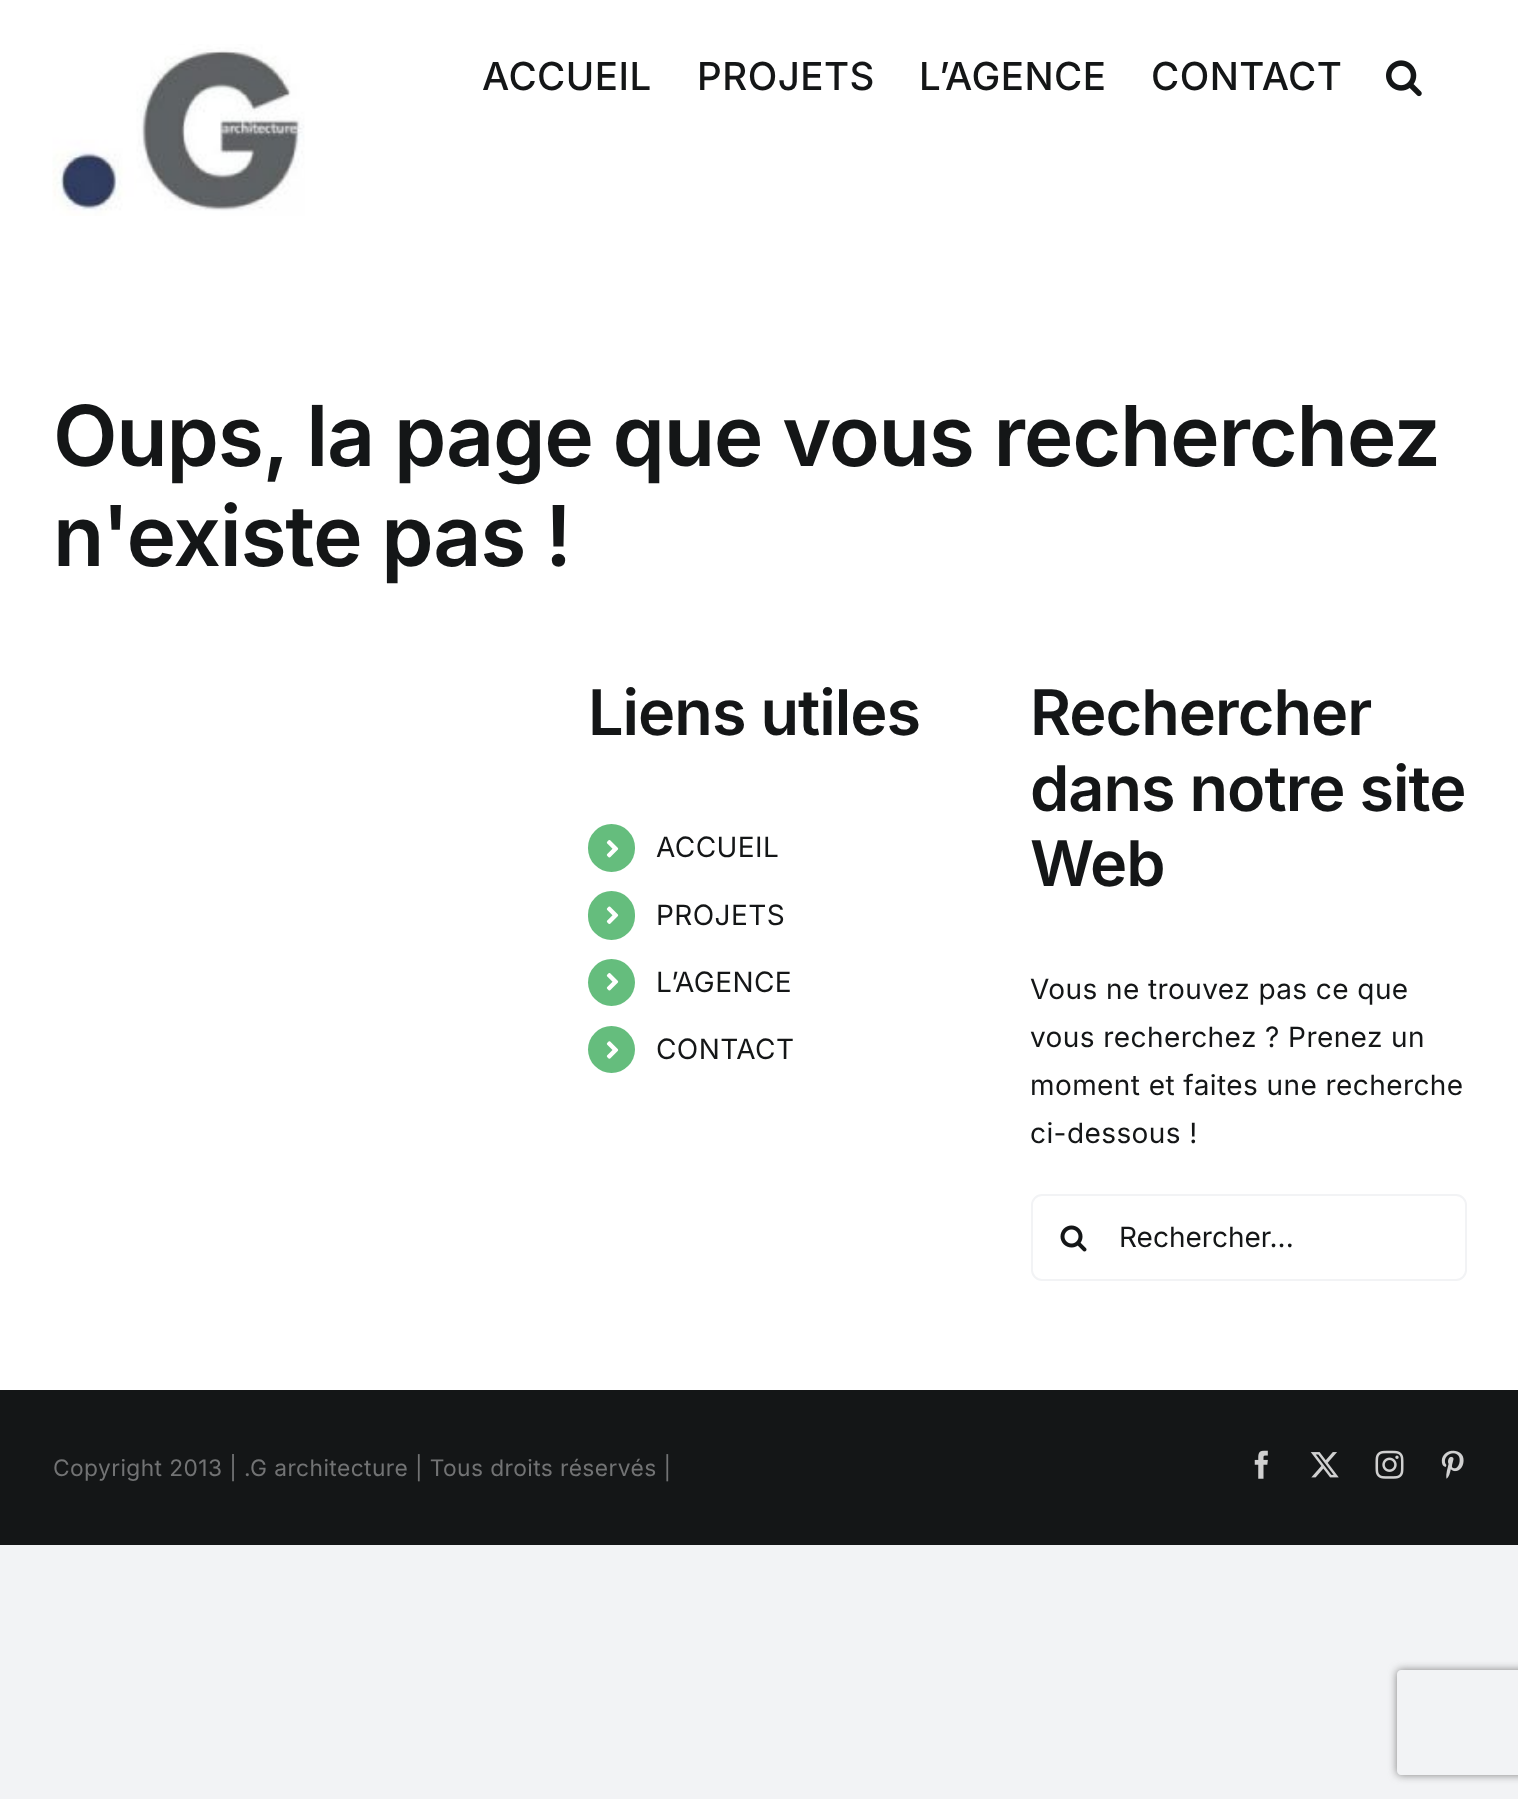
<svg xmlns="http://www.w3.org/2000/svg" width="1518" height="1799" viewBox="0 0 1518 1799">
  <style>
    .t1 { font: 500 38.5px Inter; letter-spacing: 0.5px; fill: #141617; }
    .t2 { font: 600 84px Inter; letter-spacing: -1.25px; fill: #141617; }
    .t3 { font: 600 63px Inter; letter-spacing: -1px; fill: #141617; }
    .t4 { font: 28px Inter; letter-spacing: 0.42px; fill: #141617; }
    .t5 { font: 28px Inter; fill: #141617; }
    .t6 { font: 22.75px Inter; letter-spacing: 0.42px; fill: #727374; }
  </style>
  <defs>
    <clipPath id="clip1"><path d="M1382 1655H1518V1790H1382ZM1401 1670H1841C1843 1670 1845 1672 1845 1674V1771C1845 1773 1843 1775 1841 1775H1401C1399 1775 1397 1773 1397 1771V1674C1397 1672 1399 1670 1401 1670Z" clip-rule="evenodd"/></clipPath>
  </defs>
  <rect width="100%" height="100%" fill="#f2f3f5"/>
  <rect x="0" y="0" width="1518" height="1390" fill="#fff"/>
  <image x="52" y="44" width="253" height="172" href="images/1.png"/>
  <text x="482" y="90" class="t1">ACCUEIL</text>
  <text x="697" y="90" class="t1">PROJETS</text>
  <text x="919" y="90" class="t1">L’AGENCE</text>
  <text x="1151" y="90" class="t1">CONTACT</text>
  <image x="1386" y="60" width="36" height="37" href="images/2.png"/>
  <text x="53" y="466" class="t2">Oups, la page que vous recherchez</text>
  <text x="53" y="566" class="t2">n'existe pas !</text>
  <text x="588" y="735" class="t3">Liens utiles</text>
  <rect x="588" y="824" width="47" height="48" rx="23.5" fill="#65bd7d"/>
  <image x="606" y="840" width="13" height="18" href="images/3.png"/>
  <text x="656" y="857" class="t4">ACCUEIL</text>
  <rect x="588" y="891" width="47" height="49" rx="23.5" fill="#65bd7d"/>
  <image x="606" y="906" width="13" height="18" href="images/4.png"/>
  <text x="656" y="925" class="t4">PROJETS</text>
  <circle cx="611.5" cy="982.5" r="23.5" fill="#65bd7d"/>
  <image x="606" y="973" width="13" height="18" href="images/3.png"/>
  <text x="656" y="992" class="t4">L’AGENCE</text>
  <circle cx="611.5" cy="1049.5" r="23.5" fill="#65bd7d"/>
  <image x="606" y="1041" width="13" height="18" href="images/5.png"/>
  <text x="656" y="1059" class="t4">CONTACT</text>
  <text x="1030" y="735" class="t3">Rechercher</text>
  <text x="1030" y="811" class="t3">dans notre site</text>
  <text x="1030" y="886" class="t3">Web</text>
  <text x="1030" y="999" class="t4">Vous ne trouvez pas ce que</text>
  <text x="1030" y="1047" class="t4">vous recherchez ? Prenez un</text>
  <text x="1030" y="1095" class="t4">moment et faites une recherche</text>
  <text x="1030" y="1143" class="t4">ci-dessous !</text>
  <rect x="1032" y="1195" width="434" height="85" rx="10" fill="none" stroke="#f2f3f5" stroke-width="2"/>
  <image x="1060" y="1225" width="27" height="27" href="images/6.png"/>
  <text x="1119" y="1247" class="t5">Rechercher...</text>
  <rect x="0" y="1390" width="1518" height="155" fill="#141617"/>
  <text x="53" y="1476" class="t6">Copyright 2013 | .G architecture | Tous droits réservés |</text>
  <image x="1254" y="1450" width="14" height="29" href="images/7.png"/>
  <image x="1310" y="1452" width="29" height="26" href="images/8.png"/>
  <image x="1375" y="1450" width="29" height="29" href="images/9.png"/>
  <image x="1441" y="1450" width="23" height="29" href="images/10.png"/>
  <g clip-path="url(#clip1)">
    <rect x="1397" y="1670" width="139" height="105" rx="4" fill="#808080" filter="blur(4.5px)"/>
  </g>
</svg>
